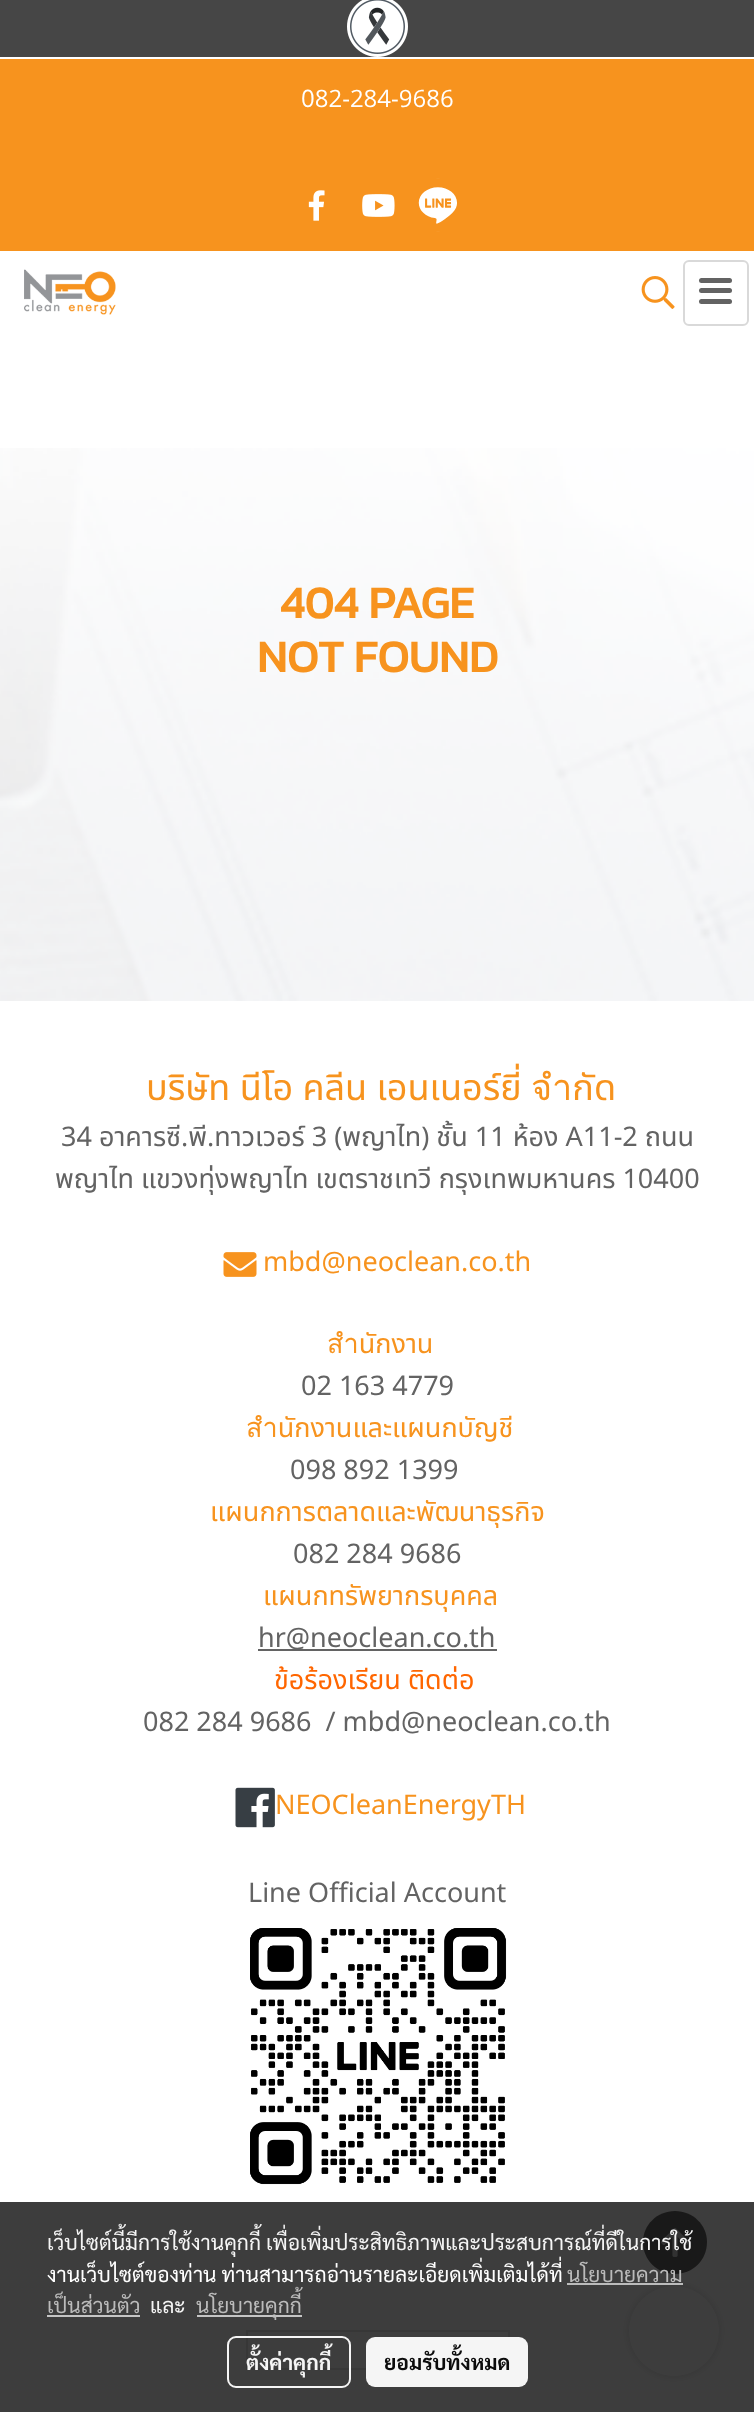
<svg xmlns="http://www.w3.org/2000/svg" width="754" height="2412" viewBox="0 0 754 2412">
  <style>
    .t1 { font: 24px Open Sans; fill: #fff; }
    .t2 { font: bold 45px Kanit; fill: #f7931e; }
    .t3 { font: 36px Noto Sans Thai; fill: #f7931e; }
    .t4 { font: 27px Noto Sans Thai; fill: #636363; }
    .t5 { font: 27px Noto Sans Thai; fill: #f7931e; }
    .t6 { font: 27px Noto Sans Thai; fill: #f60; }
    .t7 { font: 21px Sarabun; fill: #f5f5f5; }
    .t8 { font: 21px Sarabun; fill: #fff; }
    .t9 { font: 21px Sarabun; fill: #bbb; }
    .t10 { font: bold 21px Sarabun; fill: #f5f5f5; }
    .t11 { font: bold 21px Sarabun; fill: #0c0c0c; }
  </style>
  <rect width="100%" height="100%" fill="#fff"/>
  <image x="0" y="448" width="754" height="553" href="images/1.png"/>
  <rect x="0" y="0" width="754" height="57" fill="#464646"/>
  <image x="347" y="0" width="61" height="57" href="images/2.png"/>
  <rect x="0" y="59" width="754" height="192" fill="#f7931e"/>
  <text x="301" y="107" class="t1">082-284-9686</text>
  <image x="308" y="190" width="17" height="31" href="images/3.png"/>
  <image x="362" y="194" width="33" height="23" href="images/4.png"/>
  <image x="418" y="178" width="39" height="54" href="images/5.png"/>
  <image x="24" y="269" width="92" height="46" href="images/6.png"/>
  <image x="641" y="276" width="34" height="33" href="images/7.png"/>
  <rect x="684" y="261" width="64" height="64" rx="5" fill="none" stroke="#d9d9d9" stroke-width="2"/>
  <rect x="699" y="288" width="33" height="5" rx="2.5" fill="#636363"/>
  <rect x="699" y="278" width="33" height="5" rx="2.5" fill="#636363"/>
  <rect x="699" y="299" width="33" height="5" rx="2.5" fill="#636363"/>
  <text x="280" y="618" class="t2">404 PAGE</text>
  <text x="257" y="672" class="t2">NOT FOUND</text>
  <text x="146" y="1100" class="t3">บริษัท นีโอ คลีน เอนเนอร์ยี่ จำกัด</text>
  <text x="61" y="1146" class="t4">34 อาคารซี.พี.ทาวเวอร์ 3 (พญาไท) ชั้น 11 ห้อง A11-2 ถนน</text>
  <text x="55" y="1188" class="t4">พญาไท แขวงทุ่งพญาไท เขตราชเทวี กรุงเทพมหานคร 10400</text>
  <image x="223" y="1252" width="34" height="25" href="images/8.png"/>
  <text x="263" y="1271" class="t5">mbd@neoclean.co.th</text>
  <text x="327" y="1353" class="t5">สำนักงาน</text>
  <text x="301" y="1395" class="t4">02 163 4779</text>
  <text x="246" y="1437" class="t5">สำนักงานและแผนกบัญชี</text>
  <text x="290" y="1479" class="t4">098 892 1399</text>
  <text x="210" y="1521" class="t5">แผนกการตลาดและพัฒนาธุรกิจ</text>
  <text x="293" y="1563" class="t4">082 284 9686</text>
  <text x="263" y="1605" class="t5">แผนกทรัพยากรบุคคล</text>
  <rect x="258" y="1649" width="239" height="2" fill="#636363"/>
  <text x="258" y="1647" class="t4">hr@neoclean.co.th</text>
  <text x="274" y="1689" class="t6">ข้อร้องเรียน ติดต่อ</text>
  <text x="143" y="1731" class="t4" xml:space="preserve">082 284 9686  / mbd@neoclean.co.th</text>
  <image x="235" y="1787" width="40" height="41" href="images/9.png"/>
  <text x="275" y="1814" class="t5">NEOCleanEnergyTH</text>
  <text x="248" y="1902" class="t4">Line Official Account</text>
  <image x="250" y="1928" width="257" height="257" href="images/10.png"/>
  <rect x="247" y="2331" width="262" height="38" fill="none" stroke="#e5e5e5" stroke-width="2"/>
  <rect x="629" y="2286" width="90" height="90" rx="45" fill="#00000024" filter="blur(5px)"/>
  <path d="M675 2211C657 2211 643 2225 643 2242C643 2260 657 2274 675 2274C693 2274 707 2260 707 2242C707 2225 693 2211 675 2211Z" fill="#6b6a6a"/>
  <image x="661" y="2228" width="28" height="29" href="images/11.png"/>
  <circle cx="674" cy="2331" r="45" fill="#fff"/>
  <rect x="0" y="2202" width="754" height="210" fill="#000000c2"/>
  <text x="47" y="2250" class="t7">เว็บไซต์นี้มีการใช้งานคุกกี้ เพื่อเพิ่มประสิทธิภาพและประสบการณ์ที่ดีในการใช้</text>
  <text x="47" y="2282" class="t8">งานเว็บไซต์ของท่าน ท่านสามารถอ่านรายละเอียดเพิ่มเติมได้ที่</text>
  <text x="567" y="2282" class="t9">นโยบายความ</text>
  <rect x="567" y="2283" width="116" height="2" fill="#c2c2c2f2"/>
  <text x="47" y="2313" class="t9">เป็นส่วนตัว</text>
  <rect x="47" y="2315" width="93" height="2" fill="#c5c5c5"/>
  <text x="150" y="2313" class="t7">และ</text>
  <rect x="197" y="2315" width="105" height="2" fill="#c5c5c5"/>
  <text x="196" y="2313" class="t9">นโยบายคุกกี้</text>
  <rect x="228" y="2337" width="122" height="50" rx="8" fill="none" stroke="#fffffff2" stroke-width="2"/>
  <text x="246" y="2370" class="t10">ตั้งค่าคุกกี้</text>
  <rect x="366" y="2337" width="162" height="50" rx="9" fill="#fffffff2"/>
  <text x="384" y="2370" class="t11">ยอมรับทั้งหมด</text>
</svg>
